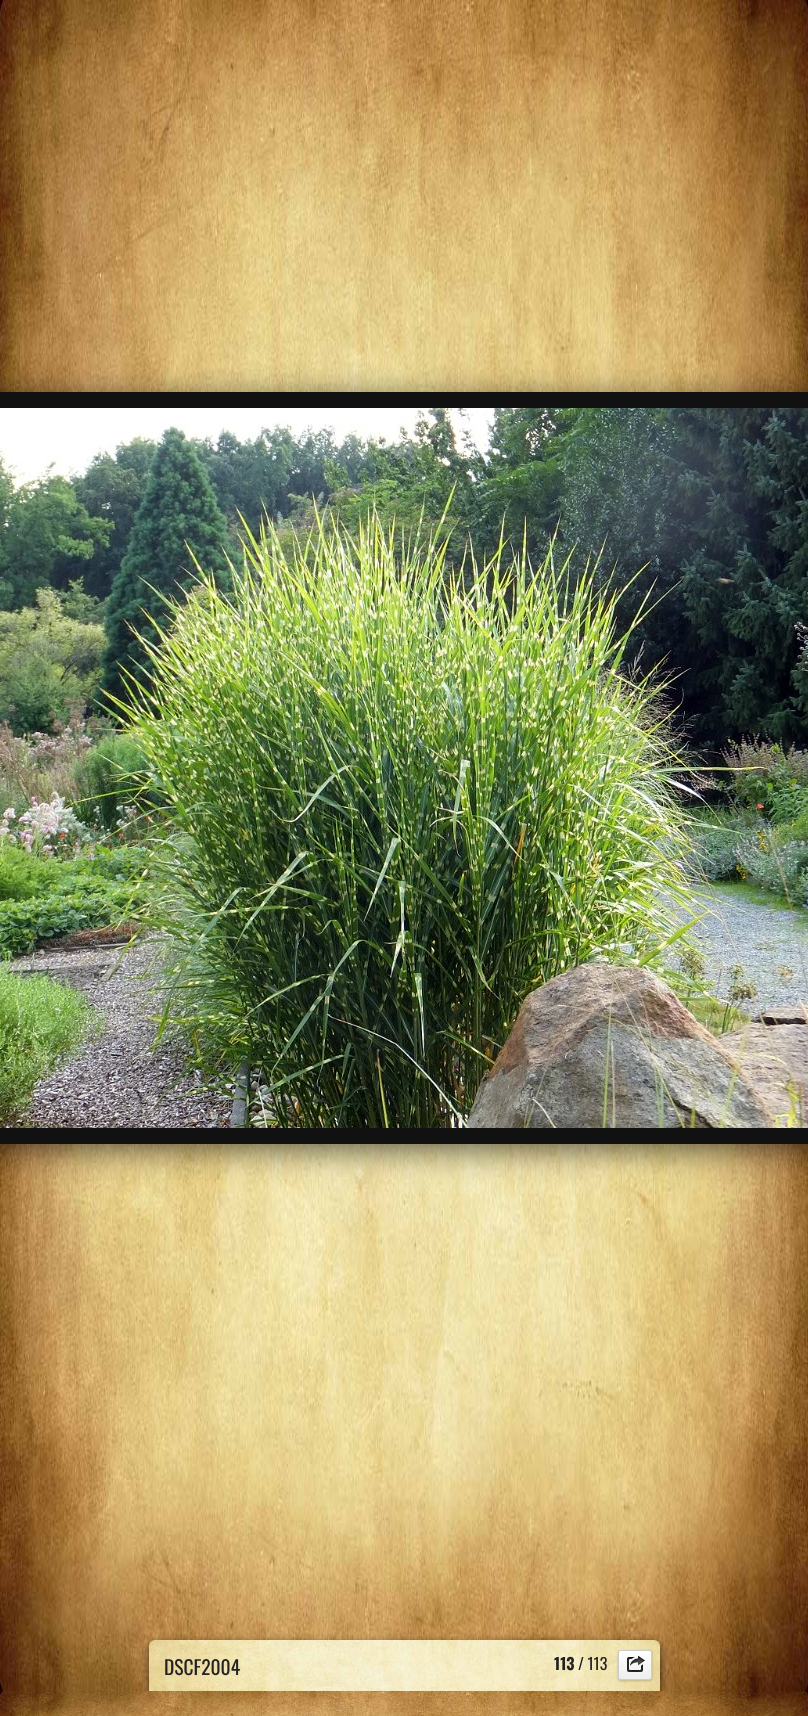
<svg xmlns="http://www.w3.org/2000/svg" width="808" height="1716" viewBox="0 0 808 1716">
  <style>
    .t1 { font: 19.5px Oswald; fill: #222; }
    .t2 { font: bold 16px Oswald; fill: #222; }
    .t3 { font: 16px Oswald; fill: #222; }
  </style>
  <defs>
    <clipPath id="clip1"><rect x="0" y="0" width="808" height="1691"/></clipPath>
    <linearGradient id="g1" gradientUnits="userSpaceOnUse" x1="635" y1="1651" x2="635" y2="1679"><stop offset="0" stop-color="#fff"/><stop offset="1" stop-color="#eee"/></linearGradient>
  </defs>
  <rect width="100%" height="100%" fill="#fff"/>
  <image x="0" y="0" width="808" height="1691" href="images/1.png"/>
  <rect x="-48" y="398" width="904" height="752" fill="#00000099" filter="blur(16px)"/>
  <rect x="0" y="392" width="808" height="752" fill="#111"/>
  <image x="0" y="408" width="808" height="720" href="images/2.png"/>
  <image x="0" y="1691" width="808" height="25" href="images/5.png"/>
  <g clip-path="url(#clip1)">
    <rect x="150" y="1643" width="511" height="51" rx="6" fill="#00000099" filter="blur(4px)"/>
  </g>
  <image x="149" y="1640" width="511" height="51" href="images/3.png"/>
  <text x="164" y="1675" class="t1">DSCF2004</text>
  <text x="554" y="1670" class="t2">113</text>
  <text x="578" y="1670" class="t3">/ 113</text>
  <rect x="618" y="1651" width="34" height="30" rx="2" fill="#00000033" filter="blur(1px)"/>
  <rect x="619" y="1651" width="32" height="28" rx="1" fill="url(#g1)"/>
  <rect x="618.5" y="1650.5" width="33" height="29" rx="1.5" fill="none" stroke="#ccc"/>
  <image x="627" y="1655" width="18" height="17" href="images/4.png"/>
</svg>
